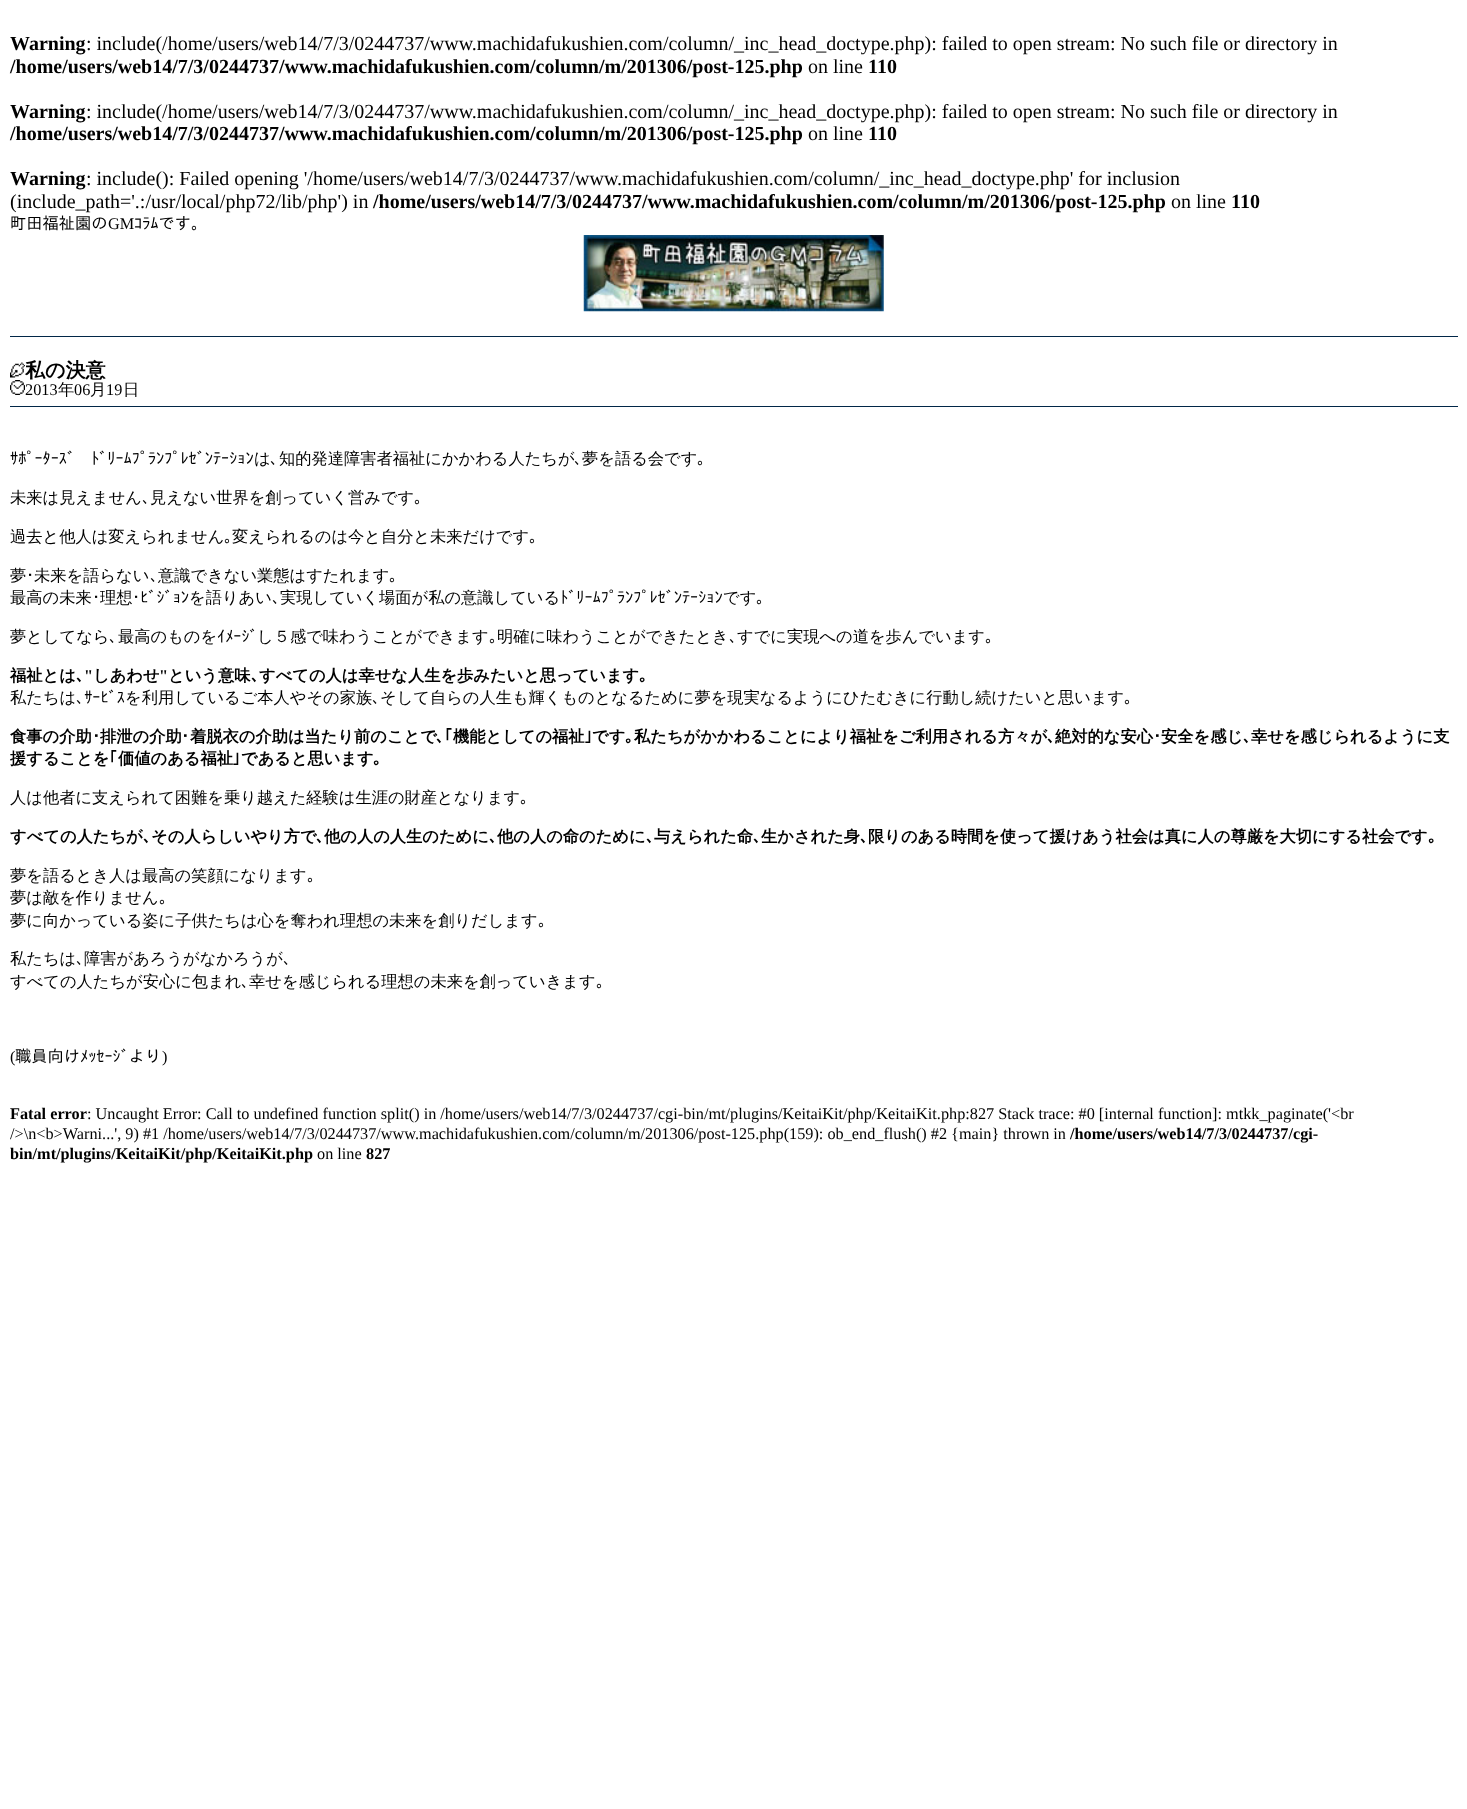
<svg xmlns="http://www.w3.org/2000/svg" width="1467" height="1809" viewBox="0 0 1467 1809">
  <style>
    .t1 { font: bold 20px Liberation Serif; fill: #000; }
    .t2 { font: 20px Liberation Serif; fill: #000; }
    .t3 { font: 16.25px IPAGothic; fill: #000; }
    .t4 { font: 16.25px Liberation Serif; fill: #000; }
    .t5 { font: bold 20px WenQuanYi Zen Hei; fill: #000; }
    .t6 { font: 500 16.25px WenQuanYi Zen Hei; fill: #000; }
    .t7 { font: bold 16.25px WenQuanYi Zen Hei; fill: #000; }
    .t8 { font: bold 16.25px Liberation Serif; fill: #000; }
    .t9 { font: bold 16.25px IPAGothic; fill: #000; }
  </style>
  <rect width="100%" height="100%" fill="#fff"/>
  <text x="10" y="50" class="t1">Warning</text>
  <text x="86" y="50" class="t2">: include(/home/users/web14/7/3/0244737/www.machidafukushien.com/column/_inc_head_doctype.php): failed to open stream: No such file or directory in</text>
  <text x="10" y="73" class="t1">/home/users/web14/7/3/0244737/www.machidafukushien.com/column/m/201306/post-125.php</text>
  <text x="808" y="73" class="t2">on line</text>
  <text x="868" y="73" class="t1">110</text>
  <text x="10" y="118" class="t1">Warning</text>
  <text x="86" y="118" class="t2">: include(/home/users/web14/7/3/0244737/www.machidafukushien.com/column/_inc_head_doctype.php): failed to open stream: No such file or directory in</text>
  <text x="10" y="140" class="t1">/home/users/web14/7/3/0244737/www.machidafukushien.com/column/m/201306/post-125.php</text>
  <text x="808" y="140" class="t2">on line</text>
  <text x="868" y="140" class="t1">110</text>
  <text x="10" y="185" class="t1">Warning</text>
  <text x="86" y="185" class="t2">: include(): Failed opening '/home/users/web14/7/3/0244737/www.machidafukushien.com/column/_inc_head_doctype.php' for inclusion</text>
  <text x="10" y="208" class="t2">(include_path='.:/usr/local/php72/lib/php') in</text>
  <text x="373" y="208" class="t1">/home/users/web14/7/3/0244737/www.machidafukushien.com/column/m/201306/post-125.php</text>
  <text x="1171" y="208" class="t2">on line</text>
  <text x="1231" y="208" class="t1">110</text>
  <text x="10" y="229" class="t3">町田福祉園の</text>
  <text x="108" y="229" class="t4">GM</text>
  <text x="134" y="229" class="t3">ｺﾗﾑです｡</text>
  <image x="583" y="235" width="301" height="77" href="images/1.png"/>
  <rect x="10" y="336" width="1448" height="1" fill="#012748"/>
  <image x="10" y="362" width="15" height="16" href="images/2.png"/>
  <text x="25" y="377" class="t5">私の決意</text>
  <image x="10" y="380" width="15" height="15" href="images/3.png"/>
  <text x="25" y="395" class="t4">2013</text>
  <text x="58" y="395" class="t6">年</text>
  <text x="74" y="395" class="t4">06</text>
  <text x="90" y="395" class="t6">月</text>
  <text x="106" y="395" class="t4">19</text>
  <text x="123" y="395" class="t6">日</text>
  <rect x="10" y="406" width="1448" height="1" fill="#012748"/>
  <text x="10" y="464" class="t3">ｻﾎﾟｰﾀｰｽﾞ</text>
  <text x="91" y="464" class="t3">ﾄﾞﾘｰﾑﾌﾟﾗﾝﾌﾟﾚｾﾞﾝﾃｰｼｮﾝ</text>
  <text x="254" y="464" class="t6">は</text>
  <text x="270" y="464" class="t3">､</text>
  <text x="279" y="464" class="t6">知的発達障害者福祉にかかわる人たちが</text>
  <text x="574" y="464" class="t3">､</text>
  <text x="582" y="464" class="t6">夢を語る会です</text>
  <text x="697" y="464" class="t3">｡</text>
  <text x="10" y="503" class="t6">未来は見えません</text>
  <text x="142" y="503" class="t3">､</text>
  <text x="150" y="503" class="t6">見えない世界を創っていく営みです</text>
  <text x="414" y="503" class="t3">｡</text>
  <text x="10" y="542" class="t6">過去と他人は変えられません</text>
  <text x="224" y="542" class="t3">｡</text>
  <text x="232" y="542" class="t6">変えられるのは今と自分と未来だけです</text>
  <text x="529" y="542" class="t3">｡</text>
  <text x="10" y="581" class="t6">夢</text>
  <text x="26" y="581" class="t3">･</text>
  <text x="34" y="581" class="t6">未来を語らない</text>
  <text x="158" y="581" class="t6">意識できない業態はすたれます</text>
  <text x="150" y="581" class="t3">､</text>
  <text x="389" y="581" class="t3">｡</text>
  <text x="10" y="603" class="t6">最高の未来</text>
  <text x="92" y="603" class="t3">･</text>
  <text x="100" y="603" class="t6">理想</text>
  <text x="132" y="603" class="t3">･ﾋﾞｼﾞｮﾝ</text>
  <text x="189" y="603" class="t6">を語りあい</text>
  <text x="280" y="603" class="t6">実現していく場面が私の意識している</text>
  <text x="560" y="603" class="t3">ﾄﾞﾘｰﾑﾌﾟﾗﾝﾌﾟﾚｾﾞﾝﾃｰｼｮﾝ</text>
  <text x="723" y="603" class="t6">です</text>
  <text x="272" y="603" class="t3">､</text>
  <text x="756" y="603" class="t3">｡</text>
  <text x="10" y="642" class="t6">夢としてなら</text>
  <text x="109" y="642" class="t3">､</text>
  <text x="118" y="642" class="t6">最高のものを</text>
  <text x="217" y="642" class="t3">ｲﾒｰｼﾞ</text>
  <text x="257" y="642" class="t6">し５感で味わうことができます</text>
  <text x="489" y="642" class="t3">｡</text>
  <text x="497" y="642" class="t6">明確に味わうことができたとき</text>
  <text x="729" y="642" class="t3">､</text>
  <text x="737" y="642" class="t6">すでに実現への道を歩んでいます</text>
  <text x="985" y="642" class="t3">｡</text>
  <text x="10" y="681" class="t7">福祉とは</text>
  <text x="84" y="681" class="t8">"</text>
  <text x="93" y="681" class="t7">しあわせ</text>
  <text x="159" y="681" class="t8">"</text>
  <text x="168" y="681" class="t7">という意味</text>
  <text x="259" y="681" class="t7">すべての人は幸せな人生を歩みたいと思っています</text>
  <text x="76" y="681" class="t9">､</text>
  <text x="251" y="681" class="t9">､</text>
  <text x="639" y="681" class="t9">｡</text>
  <text x="10" y="703" class="t6">私たちは</text>
  <text x="76" y="703" class="t3">､ｻｰﾋﾞｽ</text>
  <text x="125" y="703" class="t6">を利用しているご本人やその家族</text>
  <text x="372" y="703" class="t3">､</text>
  <text x="380" y="703" class="t6">そして自らの人生も輝くものとなるために夢を現実なるようにひたむきに行動し続けたいと思います</text>
  <text x="1124" y="703" class="t3">｡</text>
  <text x="10" y="742" class="t7">食事の介助</text>
  <text x="92" y="742" class="t9">･</text>
  <text x="100" y="742" class="t7">排泄の介助</text>
  <text x="181" y="742" class="t9">･</text>
  <text x="190" y="742" class="t7">着脱衣の介助は当たり前のことで</text>
  <text x="436" y="742" class="t9">､｢</text>
  <text x="453" y="742" class="t7">機能としての福祉</text>
  <text x="584" y="742" class="t9">｣</text>
  <text x="592" y="742" class="t7">です</text>
  <text x="634" y="742" class="t7">私たちがかかわることにより福祉をご利用される方々が</text>
  <text x="1055" y="742" class="t7">絶対的な安心</text>
  <text x="1153" y="742" class="t9">･</text>
  <text x="1161" y="742" class="t7">安全を感じ</text>
  <text x="1251" y="742" class="t7">幸せを感じられるように支</text>
  <text x="625" y="742" class="t9">｡</text>
  <text x="1047" y="742" class="t9">､</text>
  <text x="1243" y="742" class="t9">､</text>
  <text x="10" y="764" class="t7">援することを</text>
  <text x="109" y="764" class="t9">｢</text>
  <text x="118" y="764" class="t7">価値のある福祉</text>
  <text x="232" y="764" class="t9">｣</text>
  <text x="241" y="764" class="t7">であると思います</text>
  <text x="373" y="764" class="t9">｡</text>
  <text x="10" y="803" class="t6">人は他者に支えられて困難を乗り越えた経験は生涯の財産となります</text>
  <text x="520" y="803" class="t3">｡</text>
  <text x="10" y="842" class="t7">すべての人たちが</text>
  <text x="143" y="842" class="t9">､</text>
  <text x="151" y="842" class="t7">その人らしいやり方で</text>
  <text x="316" y="842" class="t9">､</text>
  <text x="324" y="842" class="t7">他の人の人生のために</text>
  <text x="489" y="842" class="t9">､</text>
  <text x="497" y="842" class="t7">他の人の命のために</text>
  <text x="646" y="842" class="t9">､</text>
  <text x="654" y="842" class="t7">与えられた命</text>
  <text x="753" y="842" class="t9">､</text>
  <text x="761" y="842" class="t7">生かされた身</text>
  <text x="860" y="842" class="t9">､</text>
  <text x="868" y="842" class="t7">限りのある時間を使って援けあう社会は真に人の尊厳を大切にする社会です</text>
  <text x="1428" y="842" class="t9">｡</text>
  <text x="10" y="881" class="t6">夢を語るとき人は最高の笑顔になります</text>
  <text x="307" y="881" class="t3">｡</text>
  <text x="10" y="903" class="t6">夢は敵を作りません</text>
  <text x="159" y="903" class="t3">｡</text>
  <text x="10" y="926" class="t6">夢に向かっている姿に子供たちは心を奪われ理想の未来を創りだします</text>
  <text x="538" y="926" class="t3">｡</text>
  <text x="10" y="964" class="t6">私たちは</text>
  <text x="76" y="964" class="t3">､</text>
  <text x="84" y="964" class="t6">障害があろうがなかろうが</text>
  <text x="283" y="964" class="t3">､</text>
  <text x="10" y="987" class="t6">すべての人たちが安心に包まれ</text>
  <text x="241" y="987" class="t3">､</text>
  <text x="249" y="987" class="t6">幸せを感じられる理想の未来を創っていきます</text>
  <text x="596" y="987" class="t3">｡</text>
  <text x="10" y="1062" class="t4">(</text>
  <text x="15" y="1062" class="t3">職員向けﾒｯｾｰｼﾞより</text>
  <text x="162" y="1062" class="t4">)</text>
  <text x="10" y="1119" class="t8">Fatal error</text>
  <text x="87" y="1119" class="t4">: Uncaught Error: Call to undefined function split() in /home/users/web14/7/3/0244737/cgi-bin/mt/plugins/KeitaiKit/php/KeitaiKit.php:827 Stack trace: #0 [internal function]: mtkk_paginate('&lt;br</text>
  <text x="10" y="1139" class="t4">/&gt;\n&lt;b&gt;Warni...', 9) #1 /home/users/web14/7/3/0244737/www.machidafukushien.com/column/m/201306/post-125.php(159): ob_end_flush() #2 {main} thrown in</text>
  <text x="1070" y="1139" class="t8">/home/users/web14/7/3/0244737/cgi-</text>
  <text x="10" y="1159" class="t8">bin/mt/plugins/KeitaiKit/php/KeitaiKit.php</text>
  <text x="317" y="1159" class="t4">on line</text>
  <text x="366" y="1159" class="t8">827</text>
</svg>
